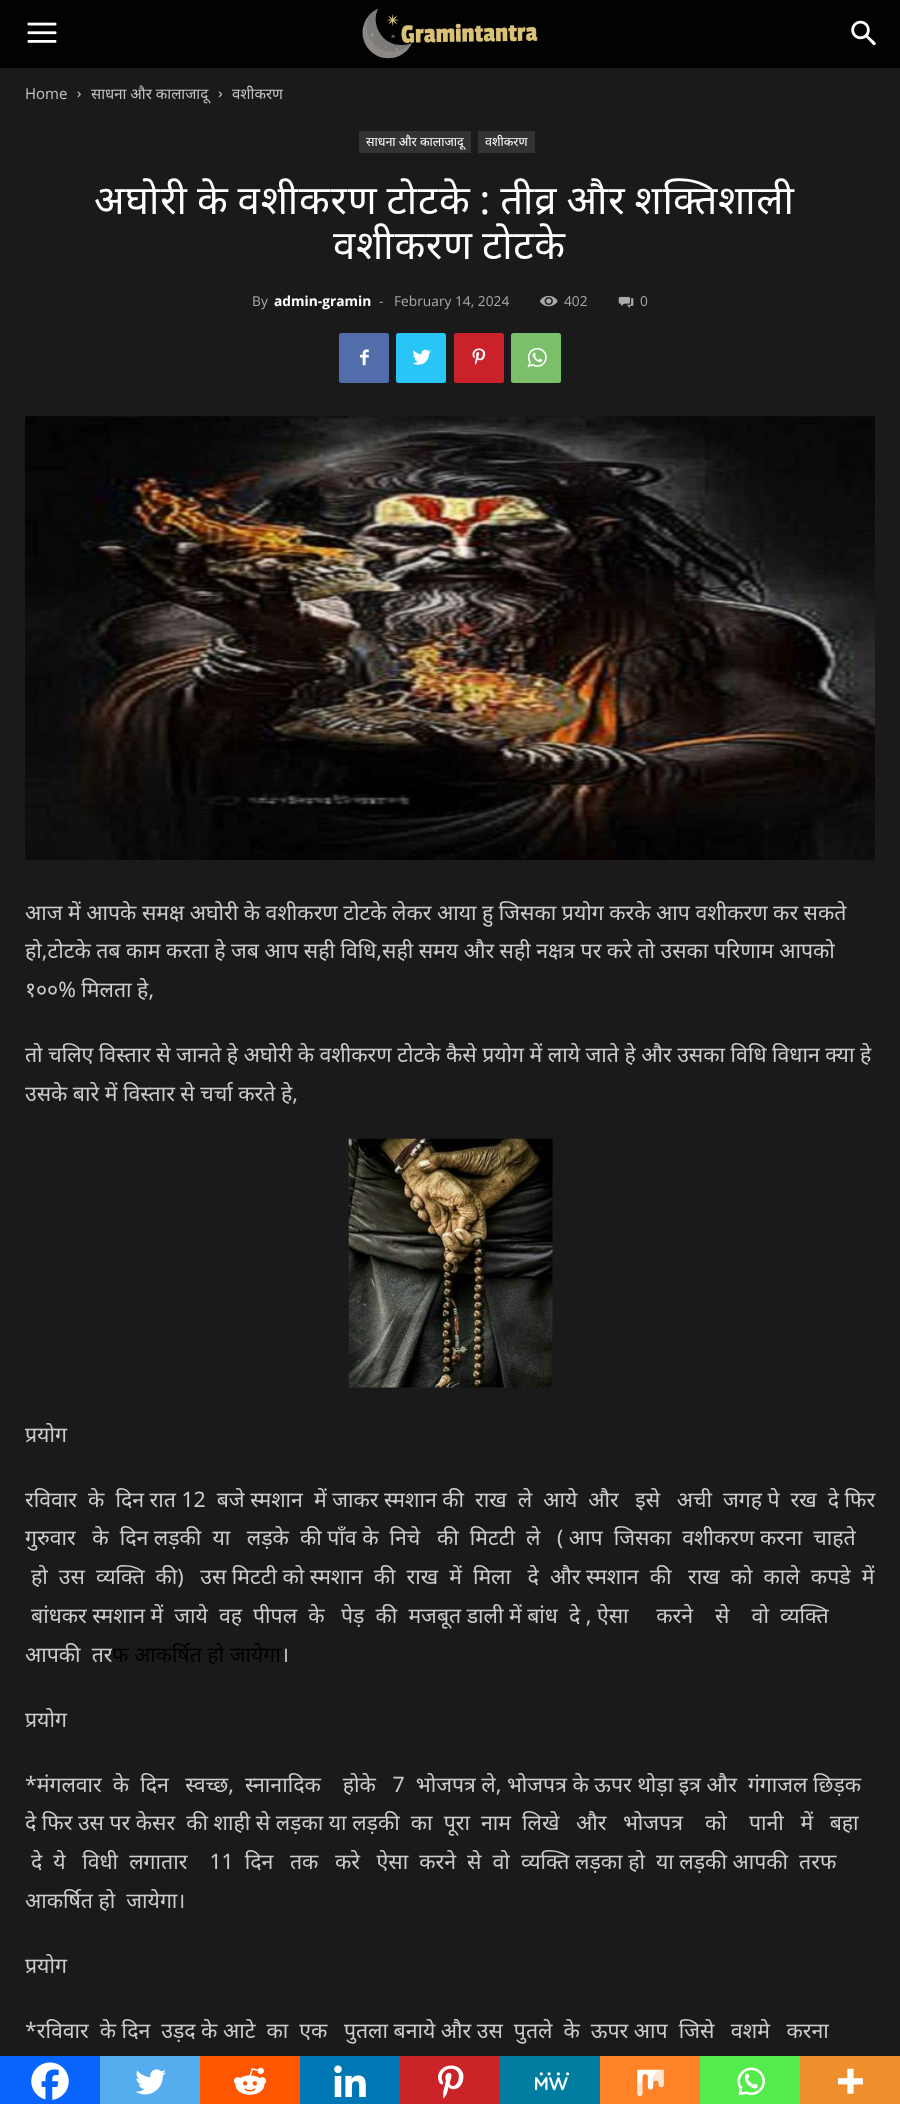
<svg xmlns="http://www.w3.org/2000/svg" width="900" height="2104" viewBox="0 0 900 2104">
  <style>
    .t1 { font: 15px Open Sans; fill: #c3c3c3; }
    .t2 { font: 15px Noto Sans; fill: #c3c3c3; }
    .t3 { font: 12.5px Noto Sans; fill: #fff; }
    .t4 { font: 40px Noto Sans; letter-spacing: 0.8px; fill: #fff; }
    .t5 { font: 13.75px Open Sans; fill: #aaa; }
    .t6 { font: bold 13.75px Open Sans; fill: #fff; }
    .t7 { font: 21.25px Noto Sans; fill: #ccc; }
    .t8 { font: 21.25px Noto Sans; fill: #000; }
  </style>
  <rect width="100%" height="100%" fill="#1a1a1a"/>
  <rect x="0" y="0" width="900" height="68" fill="#020202"/>
  <image x="27" y="22" width="30" height="21" href="images/1.png"/>
  <image x="362" y="8" width="176" height="51" href="images/2.png"/>
  <image x="851" y="20" width="25" height="26" href="images/3.png"/>
  <text x="25" y="99" class="t1">Home</text>
  <image x="77" y="91" width="4" height="7" href="images/4.png"/>
  <text x="91" y="99" class="t2">साधना और कालाजादू</text>
  <image x="218" y="91" width="5" height="7" href="images/5.png"/>
  <text x="232" y="99" class="t2">वशीकरण</text>
  <rect x="359" y="131" width="112" height="22" fill="#333"/>
  <text x="366" y="146" class="t3">साधना और कालाजादू</text>
  <rect x="478" y="131" width="57" height="22" fill="#333"/>
  <text x="485" y="146" class="t3">वशीकरण</text>
  <text x="94" y="214" word-spacing="-2" class="t4">अघोरी के वशीकरण टोटके : तीव्र और शक्तिशाली</text>
  <text x="333" y="259" word-spacing="-2" class="t4">वशीकरण टोटके</text>
  <text x="252" y="306" class="t5">By</text>
  <text x="274" y="306" class="t6">admin-gramin</text>
  <text x="379" y="306" class="t5">-</text>
  <text x="394" y="306" class="t5">February 14, 2024</text>
  <image x="540" y="295" width="18" height="12" href="images/6.png"/>
  <text x="564" y="306" class="t5">402</text>
  <image x="618" y="296" width="16" height="12" href="images/7.png"/>
  <text x="640" y="306" class="t5">0</text>
  <rect x="339" y="333" width="50" height="50" rx="2.5" fill="#516eab"/>
  <image x="360" y="349" width="9" height="17" href="images/8.png"/>
  <rect x="396" y="333" width="50" height="50" rx="2.5" fill="#29c5f6"/>
  <image x="412" y="349" width="19" height="16" href="images/9.png"/>
  <rect x="454" y="333" width="50" height="50" rx="2.5" fill="#ca212a"/>
  <image x="472" y="348" width="14" height="17" href="images/10.png"/>
  <rect x="511" y="333" width="50" height="50" rx="2.5" fill="#7bbf6a"/>
  <image x="527" y="347" width="20" height="21" href="images/11.png"/>
  <image x="25" y="416" width="850" height="444" href="images/12.png"/>
  <text x="25" y="920" class="t7">आज में आपके समक्ष अघोरी के वशीकरण टोटके लेकर आया हु जिसका प्रयोग करके आप वशीकरण कर सकते</text>
  <text x="25" y="958" class="t7">हो,टोटके तब काम करता हे जब आप सही विधि,सही समय और सही नक्षत्र पर करे तो उसका परिणाम आपको</text>
  <text x="25" y="997" class="t7">१००% मिलता हे,</text>
  <text x="25" y="1062" class="t7">तो चलिए विस्तार से जानते हे अघोरी के वशीकरण टोटके कैसे प्रयोग में लाये जाते हे और उसका विधि विधान क्या हे</text>
  <text x="25" y="1101" class="t7">उसके बारे में विस्तार से चर्चा करते हे,</text>
  <image x="348" y="1138" width="205" height="250" href="images/13.png"/>
  <text x="25" y="1442" class="t7">प्रयोग</text>
  <text x="25" y="1507" class="t7" xml:space="preserve">रविवार  के  दिन रात 12  बजे स्मशान  में जाकर स्मशान की  राख  ले  आये  और   इसे   अची  जगह पे  रख  दे फिर</text>
  <text x="25" y="1545" class="t7" xml:space="preserve">गुरुवार   के  दिन लड़की  या   लड़के  की पाँव के  निचे   की  मिटटी  ले   ( आप  जिसका  वशीकरण करना  चाहते</text>
  <text x="31" y="1584" class="t7" xml:space="preserve">हो  उस  व्यक्ति  की)   उस मिटटी को स्मशान  की  राख  में  मिला   दे  और स्मशान  की   राख  को  काले  कपडे  में</text>
  <text x="31" y="1623" class="t7" xml:space="preserve">बांधकर स्मशान में  जाये  वह  पीपल  के   पेड़  की  मजबूत डाली में बांध  दे , ऐसा     करने    से    वो  व्यक्ति</text>
  <text x="25" y="1662" class="t7" xml:space="preserve">आपकी  तर</text>
  <text x="112" y="1662" class="t8">फ आकर्षित हो जायेगा</text>
  <text x="281" y="1662" class="t7">।</text>
  <text x="25" y="1727" class="t7">प्रयोग</text>
  <text x="25" y="1792" class="t7" xml:space="preserve">*मंगलवार  के  दिन   स्वच्छ,  स्नानादिक    होके   7  भोजपत्र ले, भोजपत्र के ऊपर थोड़ा इत्र और  गंगाजल छिड़क</text>
  <text x="25" y="1830" class="t7" xml:space="preserve">दे फिर उस पर केसर  की शाही से लड़का या लड़की  का  पूरा  नाम  लिखे   और   भोजपत्र    को    पानी   में   बहा</text>
  <text x="31" y="1869" class="t7" xml:space="preserve">दे  ये   विधी  लगातार    11  दिन   तक   करे   ऐसा  करने  से  वो  व्यक्ति लड़का हो  या लड़की आपकी  तरफ</text>
  <text x="25" y="1908" class="t7" xml:space="preserve">आकर्षित हो  जायेगा।</text>
  <text x="25" y="1973" class="t7">प्रयोग</text>
  <text x="25" y="2038" class="t7" xml:space="preserve">*रविवार  के दिन  उड़द के आटे  का  एक   पुतला बनाये और उस  पुतले  के  ऊपर आप  जिसे   वशमे   करना</text>
  <rect x="0" y="2056" width="100" height="48" fill="#0765fe"/>
  <image x="31" y="2062" width="38" height="38" href="images/14.png"/>
  <rect x="100" y="2056" width="100" height="48" fill="#55acee"/>
  <image x="135" y="2069" width="31" height="26" href="images/15.png"/>
  <rect x="200" y="2056" width="100" height="48" fill="#ff5700"/>
  <image x="233" y="2067" width="34" height="28" href="images/16.png"/>
  <rect x="300" y="2056" width="100" height="48" fill="#0077b5"/>
  <image x="334" y="2065" width="32" height="32" href="images/17.png"/>
  <rect x="400" y="2056" width="100" height="48" fill="#cc2329"/>
  <image x="438" y="2065" width="26" height="34" href="images/18.png"/>
  <rect x="500" y="2056" width="100" height="48" fill="#007da1"/>
  <image x="535" y="2072" width="35" height="19" href="images/19.png"/>
  <rect x="600" y="2056" width="100" height="48" fill="#ff8226"/>
  <image x="637" y="2069" width="27" height="28" href="images/20.png"/>
  <rect x="700" y="2056" width="100" height="48" fill="#55eb4c"/>
  <image x="737" y="2067" width="28" height="29" href="images/21.png"/>
  <rect x="800" y="2056" width="100" height="48" fill="#ee8e2d"/>
  <image x="837" y="2068" width="26" height="26" href="images/22.png"/>
</svg>
